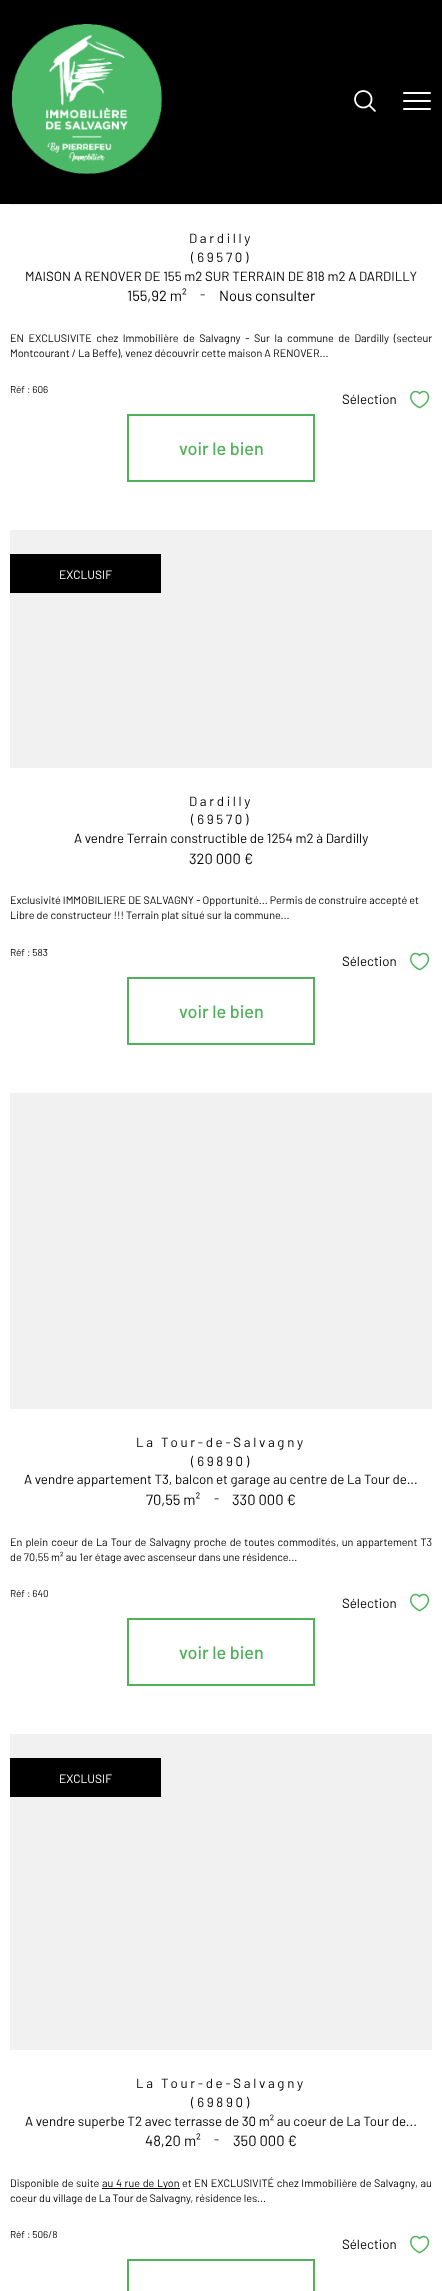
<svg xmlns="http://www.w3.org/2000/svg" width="442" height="2291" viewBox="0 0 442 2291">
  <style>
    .t1 { font: 13.3px Barlow; letter-spacing: 2.7px; fill: #000; }
    .t2 { font: 13.3px Barlow; fill: #000; }
    .t3 { font: 14.75px Barlow; fill: #000; }
    .t4 { font: 10.8px Barlow; fill: #000; }
    .t5 { font: 10px Barlow; fill: #000; }
    .t6 { font: 500 18px Barlow; fill: #51b15b; }
    .t7 { font: 12px Barlow; fill: #fff; }
  </style>
  <rect width="100%" height="100%" fill="#fff"/>
  <rect x="0" y="0" width="442" height="204" fill="#000"/>
  <image x="12" y="24" width="150" height="150" href="images/1.png"/>
  <image x="354" y="90" width="22" height="22" href="images/2.png"/>
  <rect x="403" y="100" width="28" height="2" rx="1" fill="#fff"/>
  <rect x="403" y="92" width="28" height="2" rx="1" fill="#fff"/>
  <rect x="403" y="108" width="28" height="2" rx="1" fill="#fff"/>
  <rect x="10" y="204" width="422" height="1" fill="#f1f1f1"/>
  <text x="189" y="243" class="t1">Dardilly</text>
  <text x="191" y="262" class="t1">(69570)</text>
  <text x="25" y="281" class="t2">MAISON A RENOVER DE 155 m2 SUR TERRAIN DE 818 m2 A DARDILLY</text>
  <text x="127" y="301" class="t3">155,92 m²</text>
  <text x="200" y="299" class="t2">-</text>
  <text x="219" y="301" class="t3">Nous consulter</text>
  <text x="10" y="342" word-spacing="2.4" class="t4">EN EXCLUSIVITE chez Immobilière de Salvagny - Sur la commune de Dardilly (secteur</text>
  <text x="10" y="357" class="t4">Montcourant / La Beffe), venez découvrir cette maison A RENOVER...</text>
  <text x="10" y="393" class="t5">Réf : 606</text>
  <text x="342" y="404" class="t2">Sélection</text>
  <image x="410" y="390" width="20" height="19" href="images/3.png"/>
  <rect x="128" y="415" width="186" height="66" fill="none" stroke="#51b15b" stroke-width="2"/>
  <text x="179" y="455" class="t6">voir le bien</text>
  <rect x="10" y="530" width="422" height="238" fill="#f1f1f1"/>
  <rect x="10" y="554" width="151" height="39" fill="#000"/>
  <text x="59" y="579" class="t7">EXCLUSIF</text>
  <text x="189" y="806" class="t1">Dardilly</text>
  <text x="191" y="824" class="t1">(69570)</text>
  <text x="74" y="843" class="t2">A vendre Terrain constructible de 1254 m2 à Dardilly</text>
  <text x="189" y="864" class="t3">320 000 €</text>
  <text x="10" y="904" class="t4">Exclusivité IMMOBILIERE DE SALVAGNY - Opportunité... Permis de construire accepté et</text>
  <text x="10" y="919" class="t4">Libre de constructeur !!! Terrain plat situé sur la commune...</text>
  <text x="10" y="956" class="t5">Réf : 583</text>
  <text x="342" y="966" class="t2">Sélection</text>
  <image x="410" y="952" width="20" height="19" href="images/3.png"/>
  <rect x="128" y="978" width="186" height="66" fill="none" stroke="#51b15b" stroke-width="2"/>
  <text x="179" y="1018" class="t6">voir le bien</text>
  <rect x="10" y="1093" width="422" height="316" fill="#f1f1f1"/>
  <text x="136" y="1447" class="t1">La Tour-de-Salvagny</text>
  <text x="191" y="1466" class="t1">(69890)</text>
  <text x="24" y="1484" class="t2">A vendre appartement T3, balcon et garage au centre de La Tour de...</text>
  <text x="146" y="1505" class="t3">70,55 m²</text>
  <text x="214" y="1503" class="t2">-</text>
  <text x="232" y="1505" class="t3">330 000 €</text>
  <text x="10" y="1546" word-spacing="0.9" class="t4">En plein coeur de La Tour de Salvagny proche de toutes commodités, un appartement T3</text>
  <text x="10" y="1561" class="t4">de 70,55 m² au 1er étage avec ascenseur dans une résidence...</text>
  <text x="10" y="1597" class="t5">Réf : 640</text>
  <text x="342" y="1608" class="t2">Sélection</text>
  <image x="410" y="1593" width="20" height="19" href="images/3.png"/>
  <rect x="128" y="1619" width="186" height="66" fill="none" stroke="#51b15b" stroke-width="2"/>
  <text x="179" y="1659" class="t6">voir le bien</text>
  <rect x="10" y="1734" width="422" height="316" fill="#f1f1f1"/>
  <rect x="10" y="1758" width="151" height="39" fill="#000"/>
  <text x="59" y="1783" class="t7">EXCLUSIF</text>
  <text x="136" y="2088" class="t1">La Tour-de-Salvagny</text>
  <text x="191" y="2107" class="t1">(69890)</text>
  <text x="25" y="2126" class="t2">A vendre superbe T2 avec terrasse de 30 m² au coeur de La Tour de...</text>
  <text x="145" y="2146" class="t3">48,20 m²</text>
  <text x="214" y="2144" class="t2">-</text>
  <text x="233" y="2146" class="t3">350 000 €</text>
  <text x="10" y="2187" word-spacing="0.5" class="t4">Disponible de suite</text>
  <rect x="102" y="2188" width="78" height="1" fill="#000"/>
  <text x="102" y="2187" word-spacing="0.5" class="t4">au 4 rue de Lyon</text>
  <text x="182" y="2187" word-spacing="0.5" class="t4">et EN EXCLUSIVITÉ chez Immobilière de Salvagny, au</text>
  <text x="10" y="2202" class="t4">coeur du village de La Tour de Salvagny, résidence les...</text>
  <text x="10" y="2238" class="t5">Réf : 506/8</text>
  <text x="342" y="2249" class="t2">Sélection</text>
  <image x="410" y="2235" width="20" height="19" href="images/3.png"/>
  <rect x="128" y="2260" width="186" height="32" fill="none" stroke="#51b15b" stroke-width="2"/>
</svg>
